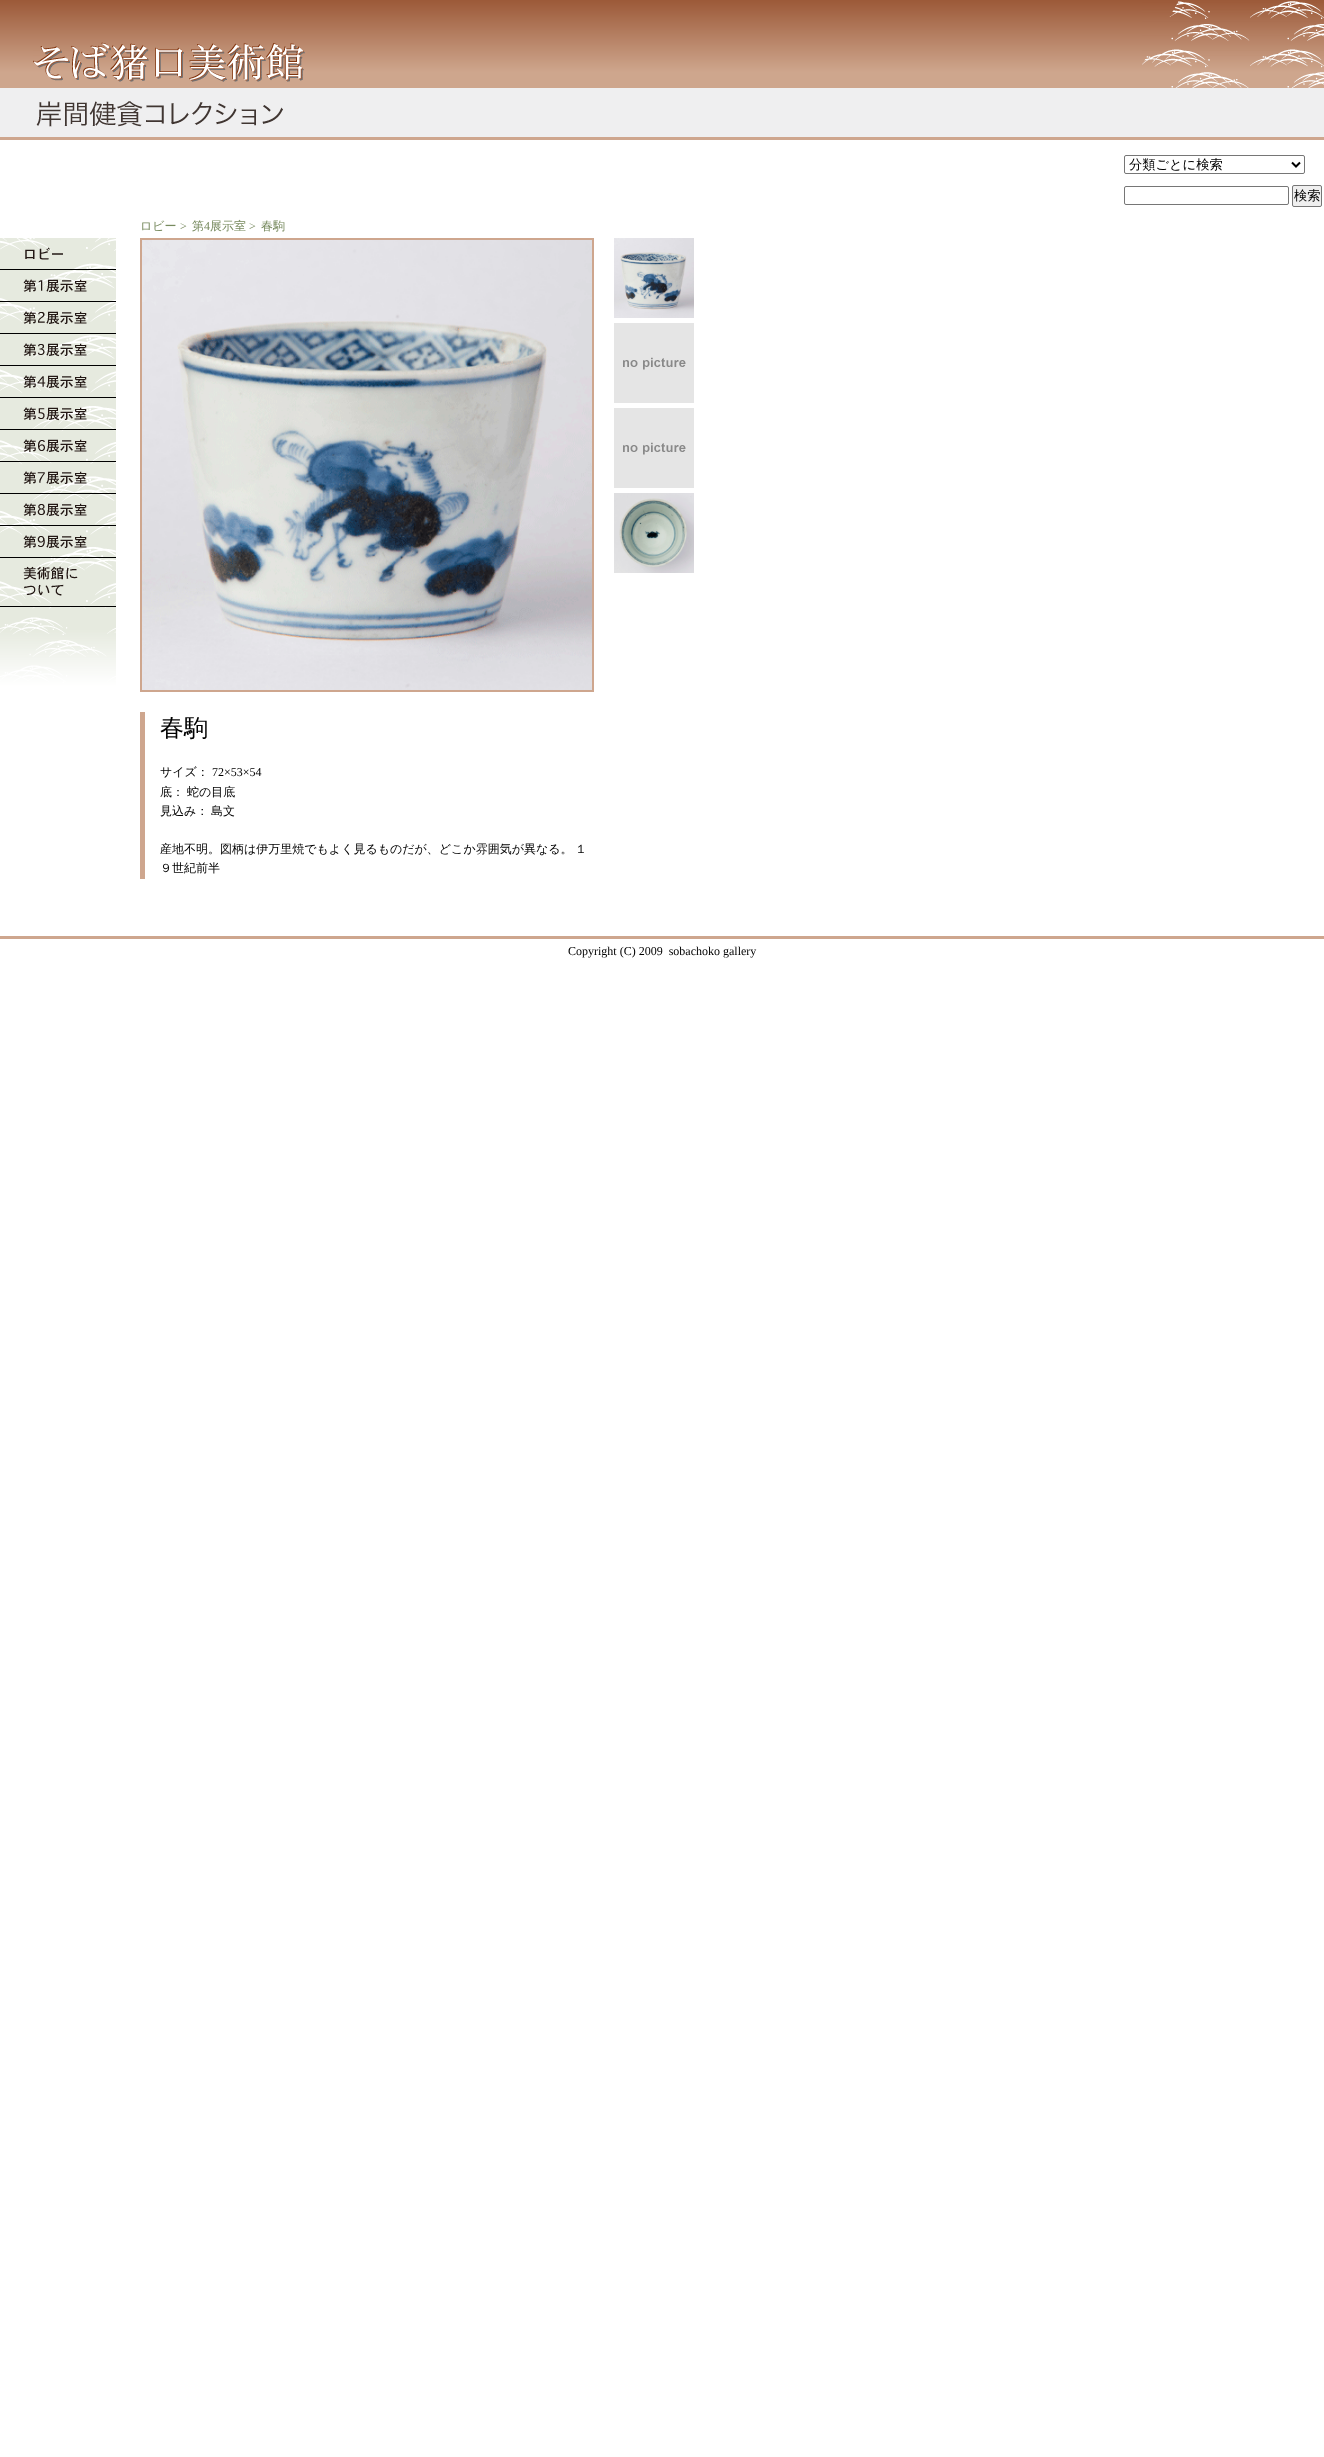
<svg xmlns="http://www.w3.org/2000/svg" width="1324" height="2457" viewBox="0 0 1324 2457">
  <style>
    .t1 { font: 500 13.25px WenQuanYi Zen Hei; fill: #000; }
    .t2 { font: 500 12px WenQuanYi Zen Hei; fill: #778a5e; }
    .t3 { font: 12px Liberation Serif; fill: #778a5e; }
    .t4 { font: 500 24px WenQuanYi Zen Hei; fill: #000; }
    .t5 { font: 500 12px WenQuanYi Zen Hei; fill: #000; }
    .t6 { font: 12px Liberation Serif; fill: #000; }
  </style>
  <rect width="100%" height="100%" fill="#fff"/>
  <image x="0" y="0" width="1324" height="140" href="images/1.png"/>
  <image x="33" y="42" width="272" height="85" href="images/2.png"/>
  <image x="1142" y="1" width="182" height="87" href="images/3.png"/>
  <rect x="1124.5" y="155.5" width="180" height="18" rx="1.5" fill="none" stroke="#767676"/>
  <path d="M1292 162.5L1296 166.5L1300 162.5" fill="none" stroke="#000" stroke-width="2"/>
  <text x="1129" y="169" class="t1">分類ごとに検索</text>
  <rect x="1124.5" y="186.5" width="164" height="18" rx="1.5" fill="none" stroke="#767676"/>
  <rect x="1292.5" y="185.5" width="29" height="21" rx="1.5" fill="#efefef" stroke="#767676"/>
  <text x="1294" y="200" class="t1">検索</text>
  <text x="140" y="230" class="t2">ロビー</text>
  <text x="180" y="230" class="t3">&gt;</text>
  <text x="192" y="230" class="t2">第</text>
  <text x="204" y="230" class="t3">4</text>
  <text x="210" y="230" class="t2">展示室</text>
  <text x="249" y="230" class="t3">&gt;</text>
  <text x="261" y="230" class="t2">春駒</text>
  <rect x="0" y="269" width="116" height="338" fill="#000"/>
  <image x="0" y="238" width="116" height="31" href="images/4.png"/>
  <image x="0" y="270" width="116" height="31" href="images/5.png"/>
  <image x="0" y="302" width="116" height="31" href="images/6.png"/>
  <image x="0" y="334" width="116" height="31" href="images/7.png"/>
  <image x="0" y="366" width="116" height="31" href="images/8.png"/>
  <image x="0" y="398" width="116" height="31" href="images/9.png"/>
  <image x="0" y="430" width="116" height="31" href="images/10.png"/>
  <image x="0" y="462" width="116" height="31" href="images/11.png"/>
  <image x="0" y="494" width="116" height="31" href="images/12.png"/>
  <image x="0" y="526" width="116" height="31" href="images/13.png"/>
  <image x="0" y="558" width="116" height="48" href="images/14.png"/>
  <image x="0" y="607" width="116" height="79" href="images/15.png"/>
  <rect x="141" y="239" width="452" height="452" fill="none" stroke="#cea68e" stroke-width="2"/>
  <image x="142" y="240" width="450" height="450" href="images/16.png"/>
  <image x="614" y="238" width="80" height="80" href="images/17.png"/>
  <image x="614" y="323" width="80" height="80" href="images/18.png"/>
  <image x="614" y="408" width="80" height="80" href="images/18.png"/>
  <image x="614" y="493" width="80" height="80" href="images/19.png"/>
  <rect x="140" y="712" width="5" height="167" fill="#cea68e"/>
  <text x="160" y="736" class="t4">春駒</text>
  <text x="160" y="776" class="t5">サイズ：</text>
  <text x="212" y="776" class="t6">72×53×54</text>
  <text x="160" y="796" class="t5">底：</text>
  <text x="187" y="796" class="t5">蛇の目底</text>
  <text x="160" y="815" class="t5">見込み：</text>
  <text x="211" y="815" class="t5">島文</text>
  <text x="160" y="853" word-spacing="-1" class="t5">産地不明。図柄は伊万里焼でもよく見るものだが、どこか雰囲気が異なる。 １</text>
  <text x="160" y="872" class="t5">９世紀前半</text>
  <rect x="0" y="936" width="1324" height="3" fill="#cea68e"/>
  <text x="568" y="955" class="t6" xml:space="preserve">Copyright (C) 2009  sobachoko gallery</text>
</svg>
